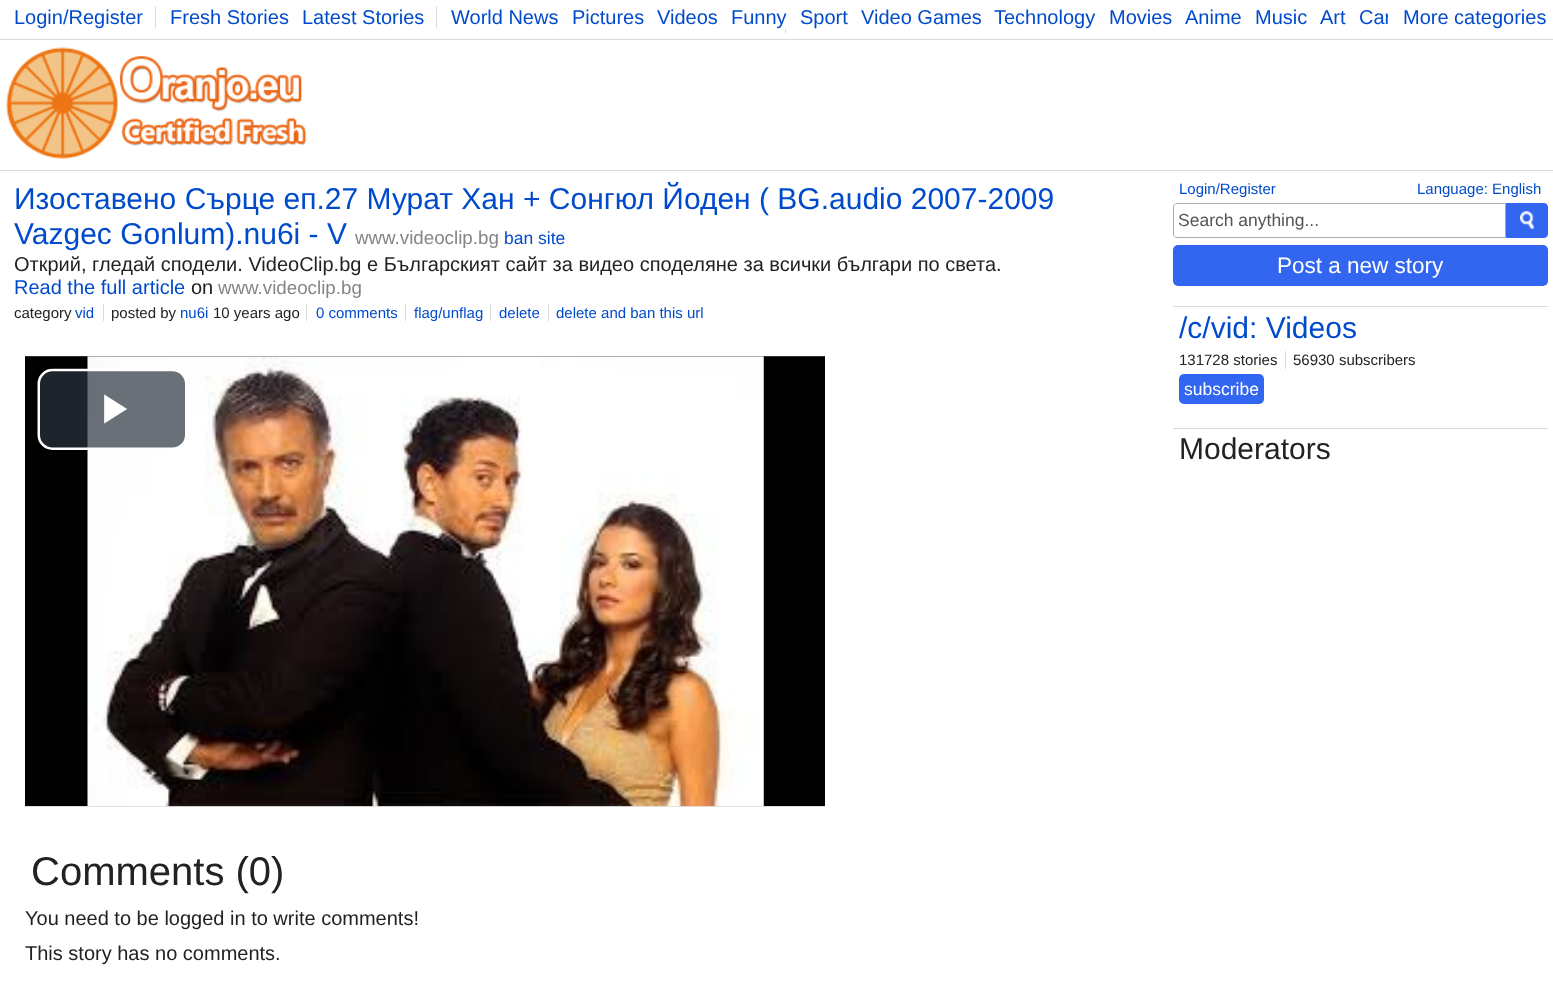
<svg xmlns="http://www.w3.org/2000/svg" width="1553" height="995" viewBox="0 0 1553 995">
  <style>
    .t1 { font: 20px Liberation Sans; fill: #004bcc; }
    .t2 { font: 30px Liberation Sans; fill: #004bcc; }
    .t3 { font: 18.75px Liberation Sans; fill: #858585; }
    .t4 { font: 17.5px Liberation Sans; fill: #004bcc; }
    .t5 { font: 20px Liberation Sans; fill: #222; }
    .t6 { font: 15px Liberation Sans; fill: #222; }
    .t7 { font: 15px Liberation Sans; fill: #004bcc; }
    .t8 { font: 40px Liberation Sans; fill: #222; }
    .t9 { font: 17.5px Liberation Sans; fill: #555; }
    .t10 { font: 22.5px Liberation Sans; fill: #fff; }
    .t11 { font: 17.5px Liberation Sans; fill: #fff; }
    .t12 { font: 30px Liberation Sans; fill: #222; }
  </style>
  <rect width="100%" height="100%" fill="#fff"/>
  <rect x="0" y="39" width="1553" height="1" fill="#dbdbdb"/>
  <rect x="155" y="6" width="1" height="22" fill="#dbdbdb"/>
  <text x="14" y="24" class="t1">Login/Register</text>
  <rect x="436" y="6" width="1" height="22" fill="#dbdbdb"/>
  <text x="170" y="24" class="t1">Fresh Stories</text>
  <text x="302" y="24" class="t1">Latest Stories</text>
  <rect x="785" y="29" width="1" height="4" fill="#dbdbdb"/>
  <text x="451" y="24" class="t1">World News</text>
  <text x="572" y="24" class="t1">Pictures</text>
  <text x="657" y="24" class="t1">Videos</text>
  <text x="731" y="24" class="t1">Funny</text>
  <text x="800" y="24" class="t1">Sport</text>
  <text x="861" y="24" class="t1">Video Games</text>
  <text x="994" y="24" class="t1">Technology</text>
  <text x="1109" y="24" class="t1">Movies</text>
  <text x="1185" y="24" class="t1">Anime</text>
  <text x="1255" y="24" class="t1">Music</text>
  <text x="1320" y="24" class="t1">Art</text>
  <text x="1359" y="24" class="t1">Car</text>
  <rect x="1388" y="13" width="3" height="3" fill="#fff"/>
  <text x="1403" y="24" class="t1">More categories</text>
  <rect x="0" y="170" width="1553" height="1" fill="#dbdbdb"/>
  <image x="6" y="47" width="301" height="112" href="images/1.png"/>
  <text x="14" y="209" class="t2">Изоставено Сърце еп.27 Мурат Хан + Сонгюл Йоден ( BG.audio 2007-2009</text>
  <text x="14" y="244" class="t2">Vazgec Gonlum).nu6i - V</text>
  <text x="355" y="244" class="t3">www.videoclip.bg</text>
  <text x="504" y="244" class="t4">ban site</text>
  <text x="14" y="271" class="t5">Открий, гледай сподели. VideoClip.bg е Българският сайт за видео споделяне за всички българи по света.</text>
  <text x="14" y="294" class="t1">Read the full article</text>
  <text x="191" y="294" class="t5">on</text>
  <text x="218" y="294" class="t3">www.videoclip.bg</text>
  <text x="14" y="318" class="t6">category</text>
  <text x="75" y="318" class="t7">vid</text>
  <rect x="103" y="304" width="1" height="17" fill="#dbdbdb"/>
  <text x="111" y="318" class="t6">posted by</text>
  <text x="180" y="318" class="t7">nu6i</text>
  <text x="213" y="318" class="t6">10 years ago</text>
  <rect x="306" y="304" width="1" height="17" fill="#dbdbdb"/>
  <text x="316" y="318" class="t7">0 comments</text>
  <rect x="405" y="304" width="1" height="17" fill="#dbdbdb"/>
  <text x="414" y="318" class="t7">flag/unflag</text>
  <rect x="490" y="304" width="1" height="17" fill="#dbdbdb"/>
  <text x="499" y="318" class="t7">delete</text>
  <rect x="548" y="304" width="1" height="17" fill="#dbdbdb"/>
  <text x="556" y="318" class="t7">delete and ban this url</text>
  <image x="25" y="356" width="800" height="451" href="images/2.png"/>
  <text x="31" y="885" class="t8">Comments (0)</text>
  <text x="25" y="925" class="t5">You need to be logged in to write comments!</text>
  <text x="25" y="960" class="t5">This story has no comments.</text>
  <text x="1179" y="194" class="t7">Login/Register</text>
  <text x="1417" y="194" class="t7">Language: English</text>
  <path d="M1177 203.5H1505.5V237.5H1177C1175 237.5 1173.5 236 1173.5 234V207C1173.5 205 1175 203.5 1177 203.5Z" fill="none" stroke="#acacac"/>
  <text x="1178" y="226" class="t9">Search anything...</text>
  <path d="M1506 203H1544C1546 203 1548 205 1548 207V234C1548 236 1546 238 1544 238H1506Z" fill="#3265f0"/>
  <image x="1520" y="211" width="14" height="18" href="images/3.png"/>
  <rect x="1173" y="245" width="375" height="41" rx="5" fill="#3265f0"/>
  <text x="1277" y="273" class="t10">Post a new story</text>
  <rect x="1173" y="306" width="375" height="1" fill="#dbdbdb"/>
  <text x="1179" y="338" class="t2">/c/vid: Videos</text>
  <text x="1179" y="365" class="t6">131728 stories</text>
  <rect x="1285" y="351" width="1" height="18" fill="#dbdbdb"/>
  <text x="1293" y="365" class="t6">56930 subscribers</text>
  <rect x="1179" y="374" width="85" height="30" rx="5" fill="#3265f0"/>
  <text x="1184" y="395" class="t11">subscribe</text>
  <rect x="1173" y="428" width="375" height="1" fill="#dbdbdb"/>
  <text x="1179" y="459" class="t12">Moderators</text>
</svg>
